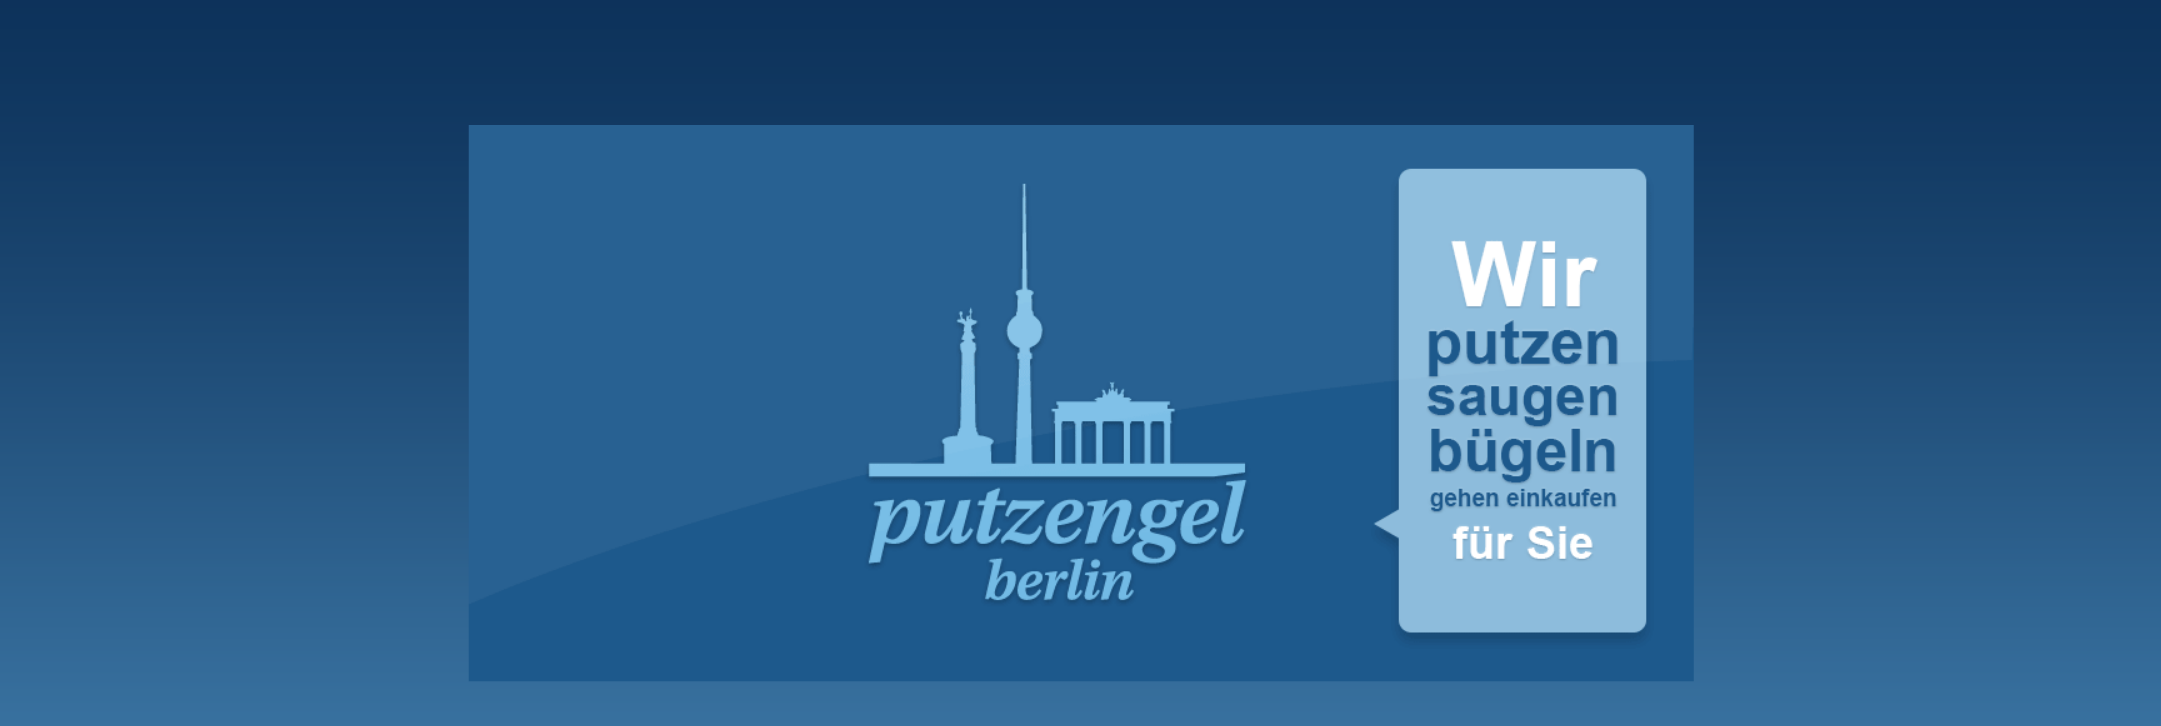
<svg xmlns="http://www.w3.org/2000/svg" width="2161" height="726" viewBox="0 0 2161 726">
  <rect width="100%" height="100%" fill="#fff"/>
  <image x="0" y="0" width="2161" height="726" href="images/1.png"/>
  <image x="468" y="125" width="1226" height="557" href="images/2.png"/>
</svg>
